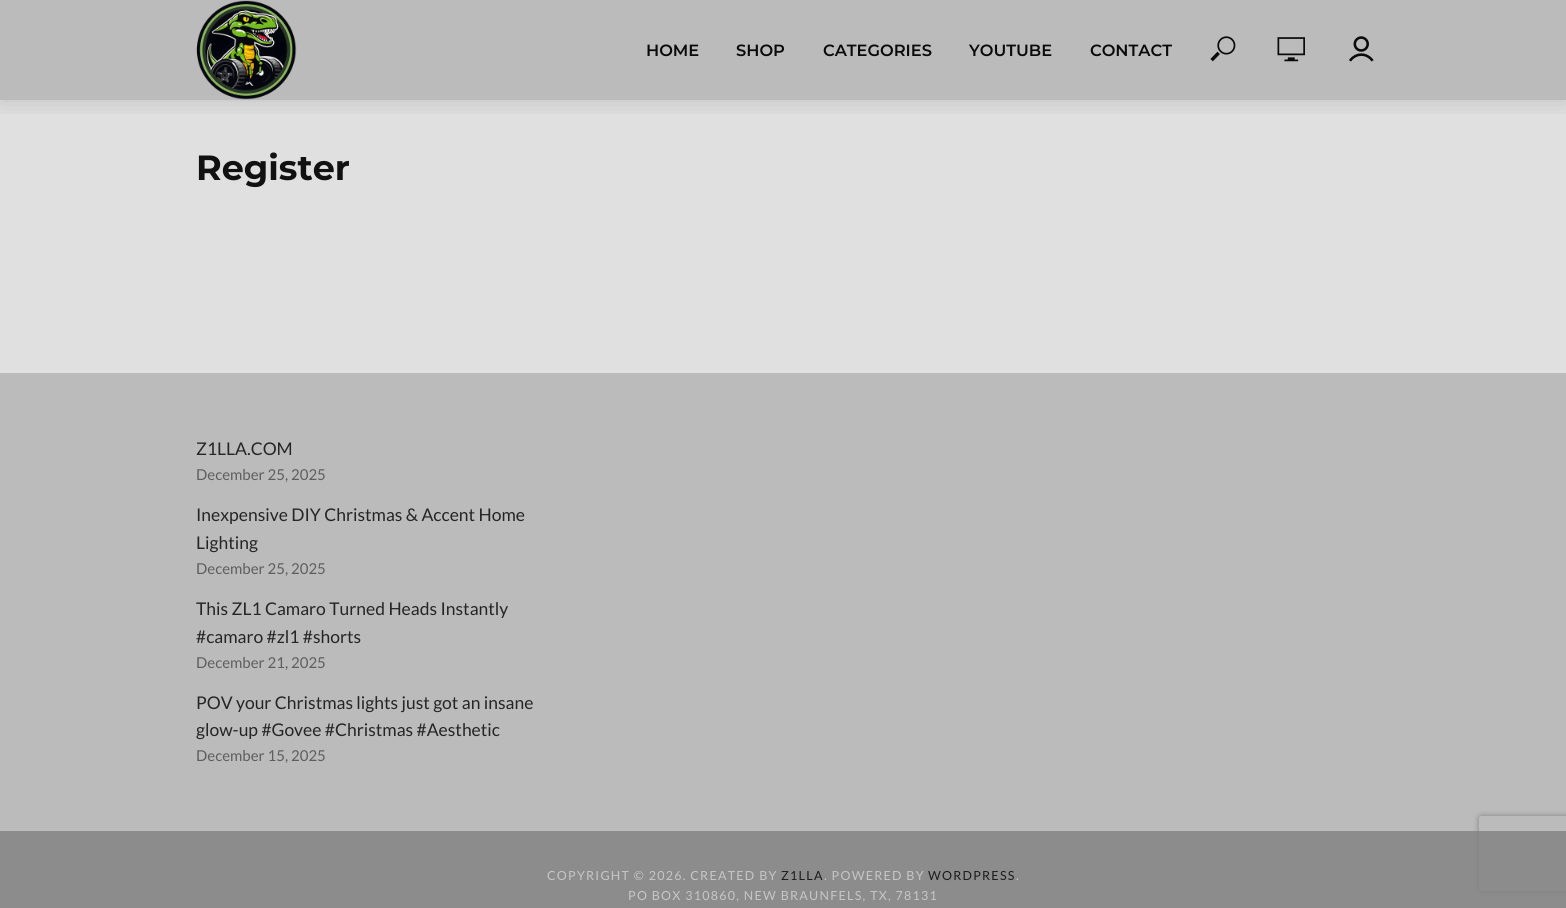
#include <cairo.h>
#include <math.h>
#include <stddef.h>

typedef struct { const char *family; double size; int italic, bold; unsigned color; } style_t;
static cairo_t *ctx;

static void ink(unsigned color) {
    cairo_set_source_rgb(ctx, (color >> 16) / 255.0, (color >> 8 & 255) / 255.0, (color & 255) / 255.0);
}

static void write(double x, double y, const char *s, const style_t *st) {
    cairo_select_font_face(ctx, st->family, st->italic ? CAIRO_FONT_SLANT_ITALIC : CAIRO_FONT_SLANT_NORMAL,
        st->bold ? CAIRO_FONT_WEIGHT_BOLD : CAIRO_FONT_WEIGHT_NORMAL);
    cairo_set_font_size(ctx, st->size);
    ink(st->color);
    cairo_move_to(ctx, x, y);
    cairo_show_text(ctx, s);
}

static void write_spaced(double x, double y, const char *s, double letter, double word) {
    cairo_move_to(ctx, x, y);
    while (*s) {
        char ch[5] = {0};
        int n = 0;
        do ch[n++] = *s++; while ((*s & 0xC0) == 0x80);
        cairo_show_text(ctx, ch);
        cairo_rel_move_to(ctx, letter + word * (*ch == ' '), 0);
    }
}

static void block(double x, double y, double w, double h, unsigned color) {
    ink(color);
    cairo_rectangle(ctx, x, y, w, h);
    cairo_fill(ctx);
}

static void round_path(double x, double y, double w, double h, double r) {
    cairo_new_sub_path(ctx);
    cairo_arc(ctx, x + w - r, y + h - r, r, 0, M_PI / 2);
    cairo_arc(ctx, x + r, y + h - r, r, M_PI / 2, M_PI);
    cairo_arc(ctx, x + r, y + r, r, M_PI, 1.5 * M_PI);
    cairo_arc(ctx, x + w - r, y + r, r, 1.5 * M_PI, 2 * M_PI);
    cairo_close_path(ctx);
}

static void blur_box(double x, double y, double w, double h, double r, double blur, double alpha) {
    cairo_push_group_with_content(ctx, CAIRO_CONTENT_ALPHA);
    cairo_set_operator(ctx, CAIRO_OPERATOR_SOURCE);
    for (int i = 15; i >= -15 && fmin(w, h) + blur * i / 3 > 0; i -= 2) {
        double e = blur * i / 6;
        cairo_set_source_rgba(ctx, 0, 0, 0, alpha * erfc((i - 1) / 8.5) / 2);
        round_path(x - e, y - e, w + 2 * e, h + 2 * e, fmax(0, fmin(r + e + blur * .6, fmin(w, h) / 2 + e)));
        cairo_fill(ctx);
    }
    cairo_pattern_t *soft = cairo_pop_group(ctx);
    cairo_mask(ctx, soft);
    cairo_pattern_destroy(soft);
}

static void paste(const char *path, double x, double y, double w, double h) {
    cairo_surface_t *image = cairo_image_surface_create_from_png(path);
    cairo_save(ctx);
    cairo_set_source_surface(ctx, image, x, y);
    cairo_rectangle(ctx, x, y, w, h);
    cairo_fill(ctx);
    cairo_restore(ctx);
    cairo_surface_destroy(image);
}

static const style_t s1 = {"Montserrat SemiBold", 16.25, 0, 0, 0x0a0a0a};
static const style_t s2 = {"Montserrat", 35, 0, 1, 0x111111};
static const style_t s3 = {"Lato", 17.5, 0, 0, 0x252525};
static const style_t s4 = {"Lato", 15, 0, 0, 0x5e5e5e};

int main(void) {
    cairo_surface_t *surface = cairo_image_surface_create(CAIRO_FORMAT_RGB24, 1566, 908);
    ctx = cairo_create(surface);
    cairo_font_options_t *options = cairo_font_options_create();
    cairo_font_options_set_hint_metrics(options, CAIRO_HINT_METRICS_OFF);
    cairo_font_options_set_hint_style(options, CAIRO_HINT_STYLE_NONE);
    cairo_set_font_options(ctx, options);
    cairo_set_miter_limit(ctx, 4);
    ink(0xe0e0e0);
    cairo_paint(ctx);
    block(0, 0, 1566, 100, 0xbbbbbb);
    cairo_save(ctx);
    cairo_rectangle(ctx, 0, 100, 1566, 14);
    cairo_clip(ctx);
    ink(0x000000);
    blur_box(0, 0, 1566, 100, 0, 12.5, 0.15);
    cairo_restore(ctx);
    paste("pic1.png", 196, 0, 101, 100);
    write(646, 56, "HOME", &s1);
    write(736, 56, "SHOP", &s1);
    write(823, 56, "CATEGORIES", &s1);
    write(969, 56, "YOUTUBE", &s1);
    write(1090, 56, "CONTACT", &s1);
    paste("pic2.png", 1210, 36, 26, 26);
    paste("pic3.png", 1277, 37, 28, 25);
    paste("pic4.png", 1349, 36, 25, 26);
    write(196, 180, "Register", &s2);
    block(0, 373, 1566, 458, 0xbbbbbb);
    write(196, 455, "Z1LLA.COM", &s3);
    write(196, 480, "December 25, 2025", &s4);
    write(196, 521, "Inexpensive DIY Christmas & Accent Home", &s3);
    write(196, 549, "Lighting", &s3);
    write(196, 574, "December 25, 2025", &s4);
    write(196, 615, "This ZL1 Camaro Turned Heads Instantly", &s3);
    write(196, 643, "#camaro #zl1 #shorts", &s3);
    write(196, 668, "December 21, 2025", &s4);
    write(196, 709, "POV your Christmas lights just got an insane", &s3);
    write(196, 736, "glow-up #Govee #Christmas #Aesthetic", &s3);
    write(196, 761, "December 15, 2025", &s4);
    block(0, 831, 1566, 77, 0x8c8c8c);
    cairo_set_font_size(ctx, 12.5);
    ink(0xc6c6c6);
    write_spaced(547, 880, "COPYRIGHT © 2026. CREATED BY", 1.25, 0);
    ink(0x1c1c1c);
    write_spaced(781, 880, "Z1LLA", 1.25, 0);
    ink(0xc6c6c6);
    write_spaced(824, 880, ". POWERED BY", 1.25, 0);
    ink(0x1c1c1c);
    write_spaced(928, 880, "WORDPRESS", 1.25, 0);
    ink(0xc6c6c6);
    write_spaced(1016, 880, ".", 1.25, 0);
    write_spaced(628, 900, "PO BOX 310860, NEW BRAUNFELS, TX, 78131", 1.25, 0);
    cairo_save(ctx);
    cairo_set_fill_rule(ctx, CAIRO_FILL_RULE_EVEN_ODD);
    cairo_new_path(ctx);
    cairo_move_to(ctx, 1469, 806);
    cairo_line_to(ctx, 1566, 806);
    cairo_line_to(ctx, 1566, 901);
    cairo_line_to(ctx, 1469, 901);
    cairo_close_path(ctx);
    cairo_move_to(ctx, 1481.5, 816);
    cairo_line_to(ctx, 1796.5, 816);
    cairo_curve_to(ctx, 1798, 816, 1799, 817, 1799, 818.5);
    cairo_line_to(ctx, 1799, 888.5);
    cairo_curve_to(ctx, 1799, 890, 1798, 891, 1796.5, 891);
    cairo_line_to(ctx, 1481.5, 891);
    cairo_curve_to(ctx, 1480, 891, 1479, 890, 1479, 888.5);
    cairo_line_to(ctx, 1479, 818.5);
    cairo_curve_to(ctx, 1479, 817, 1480, 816, 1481.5, 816);
    cairo_close_path(ctx);
    cairo_clip(ctx);
    ink(0x808080);
    blur_box(1479, 816, 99, 75, 2.5, 3, 1);
    cairo_restore(ctx);
    cairo_surface_write_to_png(surface, "screenshot.png");
    cairo_font_options_destroy(options);
    cairo_destroy(ctx);
    cairo_surface_destroy(surface);
    return 0;
}
